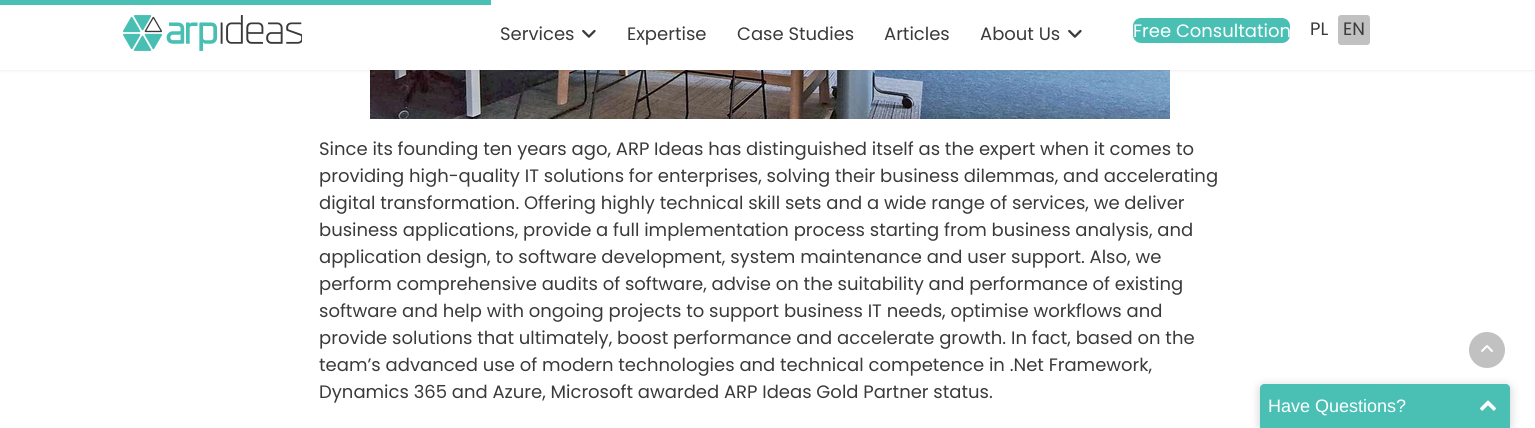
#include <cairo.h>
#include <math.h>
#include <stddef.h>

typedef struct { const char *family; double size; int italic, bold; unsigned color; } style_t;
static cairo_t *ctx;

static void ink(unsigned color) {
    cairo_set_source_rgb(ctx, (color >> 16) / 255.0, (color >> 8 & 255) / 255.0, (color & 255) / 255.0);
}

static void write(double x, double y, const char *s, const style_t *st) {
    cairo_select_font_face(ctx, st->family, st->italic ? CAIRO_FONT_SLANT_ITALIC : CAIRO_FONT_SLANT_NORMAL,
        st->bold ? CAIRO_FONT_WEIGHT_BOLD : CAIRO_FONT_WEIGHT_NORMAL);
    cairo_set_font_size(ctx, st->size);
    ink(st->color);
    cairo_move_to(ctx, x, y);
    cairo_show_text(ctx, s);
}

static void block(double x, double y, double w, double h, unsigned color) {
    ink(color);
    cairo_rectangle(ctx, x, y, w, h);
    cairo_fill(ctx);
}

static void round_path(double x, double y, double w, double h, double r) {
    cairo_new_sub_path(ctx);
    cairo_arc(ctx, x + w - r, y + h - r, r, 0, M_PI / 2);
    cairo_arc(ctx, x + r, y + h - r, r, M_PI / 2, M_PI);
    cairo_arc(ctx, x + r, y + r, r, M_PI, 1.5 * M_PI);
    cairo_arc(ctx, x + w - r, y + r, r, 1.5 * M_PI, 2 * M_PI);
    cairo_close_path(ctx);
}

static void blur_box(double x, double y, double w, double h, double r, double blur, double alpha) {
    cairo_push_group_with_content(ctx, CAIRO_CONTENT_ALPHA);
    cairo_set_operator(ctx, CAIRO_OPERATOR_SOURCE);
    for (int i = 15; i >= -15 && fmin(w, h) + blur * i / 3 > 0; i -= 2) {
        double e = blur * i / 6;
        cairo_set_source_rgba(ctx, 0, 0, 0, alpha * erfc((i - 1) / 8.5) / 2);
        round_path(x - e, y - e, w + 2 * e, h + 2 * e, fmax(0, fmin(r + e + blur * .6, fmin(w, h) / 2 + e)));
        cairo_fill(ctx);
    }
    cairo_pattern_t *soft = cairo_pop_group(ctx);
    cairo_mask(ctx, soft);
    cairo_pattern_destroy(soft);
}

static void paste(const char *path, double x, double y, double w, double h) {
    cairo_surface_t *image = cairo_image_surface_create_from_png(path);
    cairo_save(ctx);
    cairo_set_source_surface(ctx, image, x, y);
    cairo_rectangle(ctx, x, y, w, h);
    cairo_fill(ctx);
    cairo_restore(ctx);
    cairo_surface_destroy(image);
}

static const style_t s1 = {"Poppins", 18, 0, 0, 0x3a3a3a};
static const style_t s2 = {"Poppins", 18, 0, 0, 0xffffff};
static const style_t s3 = {"Liberation Sans", 18, 0, 0, 0xffffff};

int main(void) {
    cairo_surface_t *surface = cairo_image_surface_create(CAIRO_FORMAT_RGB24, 1535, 428);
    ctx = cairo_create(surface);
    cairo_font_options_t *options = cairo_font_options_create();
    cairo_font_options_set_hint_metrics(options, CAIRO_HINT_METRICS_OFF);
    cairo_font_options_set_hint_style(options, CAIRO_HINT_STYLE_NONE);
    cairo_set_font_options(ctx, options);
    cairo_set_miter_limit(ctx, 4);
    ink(0xffffff);
    cairo_paint(ctx);
    paste("pic3.png", 370, 70, 800, 49);
    ink(0x000000);
    blur_box(0, 0, 1535, 70, 0, 2, 0.1);
    block(0, 0, 1535, 70, 0xffffff);
    block(0, 0, 491, 5, 0x4ac0b5);
    paste("pic1.png", 123, 15, 179, 36);
    write(500, 40, "Services", &s1);
    paste("pic2.png", 582, 29, 14, 9);
    write(627, 40, "Expertise", &s1);
    write(737, 40, "Case Studies", &s1);
    write(884, 40, "Articles", &s1);
    write(980, 40, "About Us", &s1);
    paste("pic2.png", 1068, 29, 14, 9);
    ink(0x4ac0b5);
    round_path(1133, 18, 157, 25, 8);
    cairo_fill(ctx);
    write(1133, 37, "Free Consultation", &s2);
    write(1310, 35, "PL", &s1);
    ink(0xc1c1c1);
    round_path(1338, 15, 32, 30, 3);
    cairo_fill(ctx);
    write(1343, 35, "EN", &s1);
    write(319, 155, "Since its founding ten years ago, ARP Ideas has distinguished itself as the expert when it comes to", &s1);
    write(319, 182, "providing high-quality IT solutions for enterprises, solving their business dilemmas, and accelerating", &s1);
    write(319, 209, "digital transformation. Offering highly technical skill sets and a wide range of services, we deliver", &s1);
    write(319, 236, "business applications, provide a full implementation process starting from business analysis, and", &s1);
    write(319, 263, "application design, to software development, system maintenance and user support. Also, we", &s1);
    write(319, 290, "perform comprehensive audits of software, advise on the suitability and performance of existing", &s1);
    write(319, 317, "software and help with ongoing projects to support business IT needs, optimise workflows and", &s1);
    write(319, 344, "provide solutions that ultimately, boost performance and accelerate growth. In fact, based on the", &s1);
    write(319, 371, "team’s advanced use of modern technologies and technical competence in .Net Framework,", &s1);
    write(319, 398, "Dynamics 365 and Azure, Microsoft awarded ARP Ideas Gold Partner status.", &s1);
    ink(0xc1c1c1);
    cairo_new_path(ctx);
    cairo_arc(ctx, 1487, 350, 18, 0, 2 * M_PI);
    cairo_fill(ctx);
    paste("pic4.png", 1481, 345, 12, 7);
    ink(0x000000);
    blur_box(1260, 386, 250, 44, 4, 5, 0.2);
    ink(0x4ac0b5);
    cairo_new_path(ctx);
    cairo_move_to(ctx, 1264, 384);
    cairo_line_to(ctx, 1506, 384);
    cairo_curve_to(ctx, 1508, 384, 1510, 386, 1510, 388);
    cairo_line_to(ctx, 1510, 428);
    cairo_line_to(ctx, 1260, 428);
    cairo_line_to(ctx, 1260, 388);
    cairo_curve_to(ctx, 1260, 386, 1262, 384, 1264, 384);
    cairo_close_path(ctx);
    cairo_fill(ctx);
    write(1268, 412, "Have Questions?", &s3);
    paste("pic5.png", 1479, 400, 18, 11);
    cairo_surface_write_to_png(surface, "screenshot.png");
    cairo_font_options_destroy(options);
    cairo_destroy(ctx);
    cairo_surface_destroy(surface);
    return 0;
}
